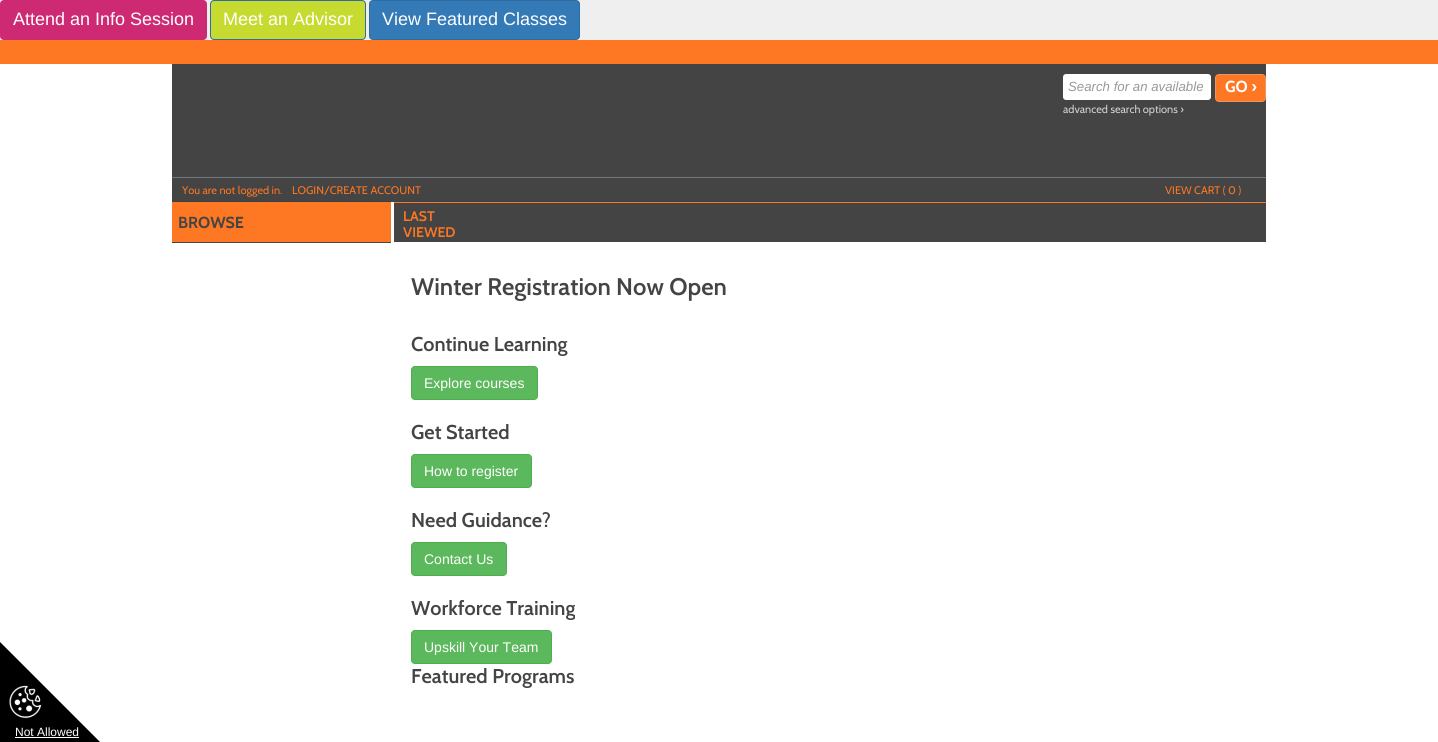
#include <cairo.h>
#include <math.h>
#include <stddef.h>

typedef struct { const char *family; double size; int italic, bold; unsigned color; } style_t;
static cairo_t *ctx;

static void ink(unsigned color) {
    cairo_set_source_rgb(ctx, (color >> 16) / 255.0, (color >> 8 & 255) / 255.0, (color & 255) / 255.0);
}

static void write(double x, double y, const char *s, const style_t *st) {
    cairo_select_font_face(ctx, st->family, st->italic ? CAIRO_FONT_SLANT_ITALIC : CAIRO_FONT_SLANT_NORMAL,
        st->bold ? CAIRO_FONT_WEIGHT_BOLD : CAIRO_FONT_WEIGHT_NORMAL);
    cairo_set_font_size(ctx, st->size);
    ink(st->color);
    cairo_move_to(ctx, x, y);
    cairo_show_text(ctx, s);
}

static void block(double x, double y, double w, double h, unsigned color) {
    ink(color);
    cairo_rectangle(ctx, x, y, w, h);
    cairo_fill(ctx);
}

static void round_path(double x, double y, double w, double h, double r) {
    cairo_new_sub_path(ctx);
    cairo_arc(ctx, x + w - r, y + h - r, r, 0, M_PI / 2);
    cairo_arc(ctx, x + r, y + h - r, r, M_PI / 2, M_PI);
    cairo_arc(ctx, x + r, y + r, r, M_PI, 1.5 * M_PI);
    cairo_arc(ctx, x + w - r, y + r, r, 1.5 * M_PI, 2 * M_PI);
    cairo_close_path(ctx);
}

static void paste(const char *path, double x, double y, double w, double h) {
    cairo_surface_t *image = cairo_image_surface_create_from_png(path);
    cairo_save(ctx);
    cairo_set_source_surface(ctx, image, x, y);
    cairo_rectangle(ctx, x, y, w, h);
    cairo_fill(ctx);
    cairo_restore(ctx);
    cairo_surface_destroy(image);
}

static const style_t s1 = {"Liberation Sans", 18, 0, 0, 0xffffff};
static const style_t s2 = {"Liberation Sans", 13.25, 1, 0, 0x999999};
static const style_t s3 = {"Cabin", 16, 0, 1, 0xffffff};
static const style_t s4 = {"Cabin", 11, 0, 0, 0xd1d3d4};
static const style_t s5 = {"Cabin", 11, 0, 0, 0xfe7722};
static const style_t s6 = {"Cabin", 16, 0, 1, 0x444444};
static const style_t s7 = {"Cabin SemiBold", 14, 0, 0, 0xfe7722};
static const style_t s8 = {"Cabin SemiBold", 24, 0, 0, 0x444444};
static const style_t s9 = {"Cabin SemiBold", 20, 0, 0, 0x444444};
static const style_t s10 = {"Liberation Sans", 14, 0, 0, 0xffffff};
static const style_t s11 = {"Liberation Sans", 12, 0, 0, 0xffffff};

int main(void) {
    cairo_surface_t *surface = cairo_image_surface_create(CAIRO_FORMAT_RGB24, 1438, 742);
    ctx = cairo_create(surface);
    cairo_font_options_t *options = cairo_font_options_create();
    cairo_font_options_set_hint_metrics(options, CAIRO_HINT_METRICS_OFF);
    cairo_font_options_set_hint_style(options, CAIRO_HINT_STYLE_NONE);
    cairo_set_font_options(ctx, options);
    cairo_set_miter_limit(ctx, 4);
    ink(0xffffff);
    cairo_paint(ctx);
    block(0, 0, 1438, 40, 0xefefef);
    ink(0xce2a74);
    round_path(0, 0, 207, 40, 4);
    cairo_fill(ctx);
    write(13, 25, "Attend an Info Session", &s1);
    ink(0xc7da30);
    round_path(210.5, 0.5, 155, 39, 3.5);
    cairo_fill_preserve(ctx);
    ink(0x2e6da4);
    cairo_set_line_width(ctx, 1);
    cairo_stroke(ctx);
    write(223, 25, "Meet an Advisor", &s1);
    ink(0x337ab7);
    round_path(369.5, 0.5, 210, 39, 3.5);
    cairo_fill_preserve(ctx);
    ink(0x2e6da4);
    cairo_stroke(ctx);
    write(382, 25, "View Featured Classes", &s1);
    block(0, 40, 1438, 24, 0xfe7722);
    block(172, 64, 1094, 137, 0x444444);
    ink(0xffffff);
    round_path(1063, 74, 148, 26, 3);
    cairo_fill(ctx);
    write(1068, 91, "Search for an available", &s2);
    ink(0xfe7722);
    round_path(1215.5, 74.5, 50, 27, 3.5);
    cairo_fill_preserve(ctx);
    ink(0xea9661);
    cairo_stroke(ctx);
    write(1225, 92, "GO ›", &s3);
    write(1063, 113, "advanced search options ›", &s4);
    block(172, 177, 1094, 1, 0x70787c);
    block(172, 201, 1094, 1, 0x3b4144);
    write(182, 194, "You are not logged in.", &s5);
    write(292, 194, "LOGIN/CREATE ACCOUNT", &s5);
    write(1165, 194, "VIEW CART ( 0 )", &s5);
    block(172, 202, 219, 40, 0xfe7722);
    block(172, 242, 219, 1, 0x444444);
    write(178, 228, "BROWSE", &s6);
    block(394, 203, 872, 39, 0x444444);
    block(394, 202, 872, 1, 0xfe7722);
    write(403, 221, "LAST", &s7);
    write(403, 237, "VIEWED", &s7);
    write(411, 295, "Winter Registration Now Open", &s8);
    write(411, 351, "Continue Learning", &s9);
    ink(0x5cb85c);
    round_path(411.5, 366.5, 126, 33, 3.5);
    cairo_fill_preserve(ctx);
    ink(0x4cae4c);
    cairo_stroke(ctx);
    write(424, 388, "Explore courses", &s10);
    write(411, 439, "Get Started", &s9);
    ink(0x5cb85c);
    round_path(411.5, 454.5, 120, 33, 3.5);
    cairo_fill_preserve(ctx);
    ink(0x4cae4c);
    cairo_stroke(ctx);
    write(424, 476, "How to register", &s10);
    write(411, 527, "Need Guidance?", &s9);
    ink(0x5cb85c);
    round_path(411.5, 542.5, 95, 33, 3.5);
    cairo_fill_preserve(ctx);
    ink(0x4cae4c);
    cairo_stroke(ctx);
    write(424, 564, "Contact Us", &s10);
    write(411, 615, "Workforce Training", &s9);
    ink(0x5cb85c);
    round_path(411.5, 630.5, 140, 33, 3.5);
    cairo_fill_preserve(ctx);
    ink(0x4cae4c);
    cairo_stroke(ctx);
    write(424, 652, "Upskill Your Team", &s10);
    write(411, 683, "Featured Programs", &s9);
    ink(0x000000);
    cairo_new_path(ctx);
    cairo_move_to(ctx, 100, 742);
    cairo_line_to(ctx, 0, 742);
    cairo_line_to(ctx, 0, 642);
    cairo_close_path(ctx);
    cairo_fill(ctx);
    paste("pic1.png", 9, 685, 33, 34);
    write(15, 736, "Not Allowed", &s11);
    block(15, 737, 64, 1, 0xffffff);
    cairo_surface_write_to_png(surface, "screenshot.png");
    cairo_font_options_destroy(options);
    cairo_destroy(ctx);
    cairo_surface_destroy(surface);
    return 0;
}
